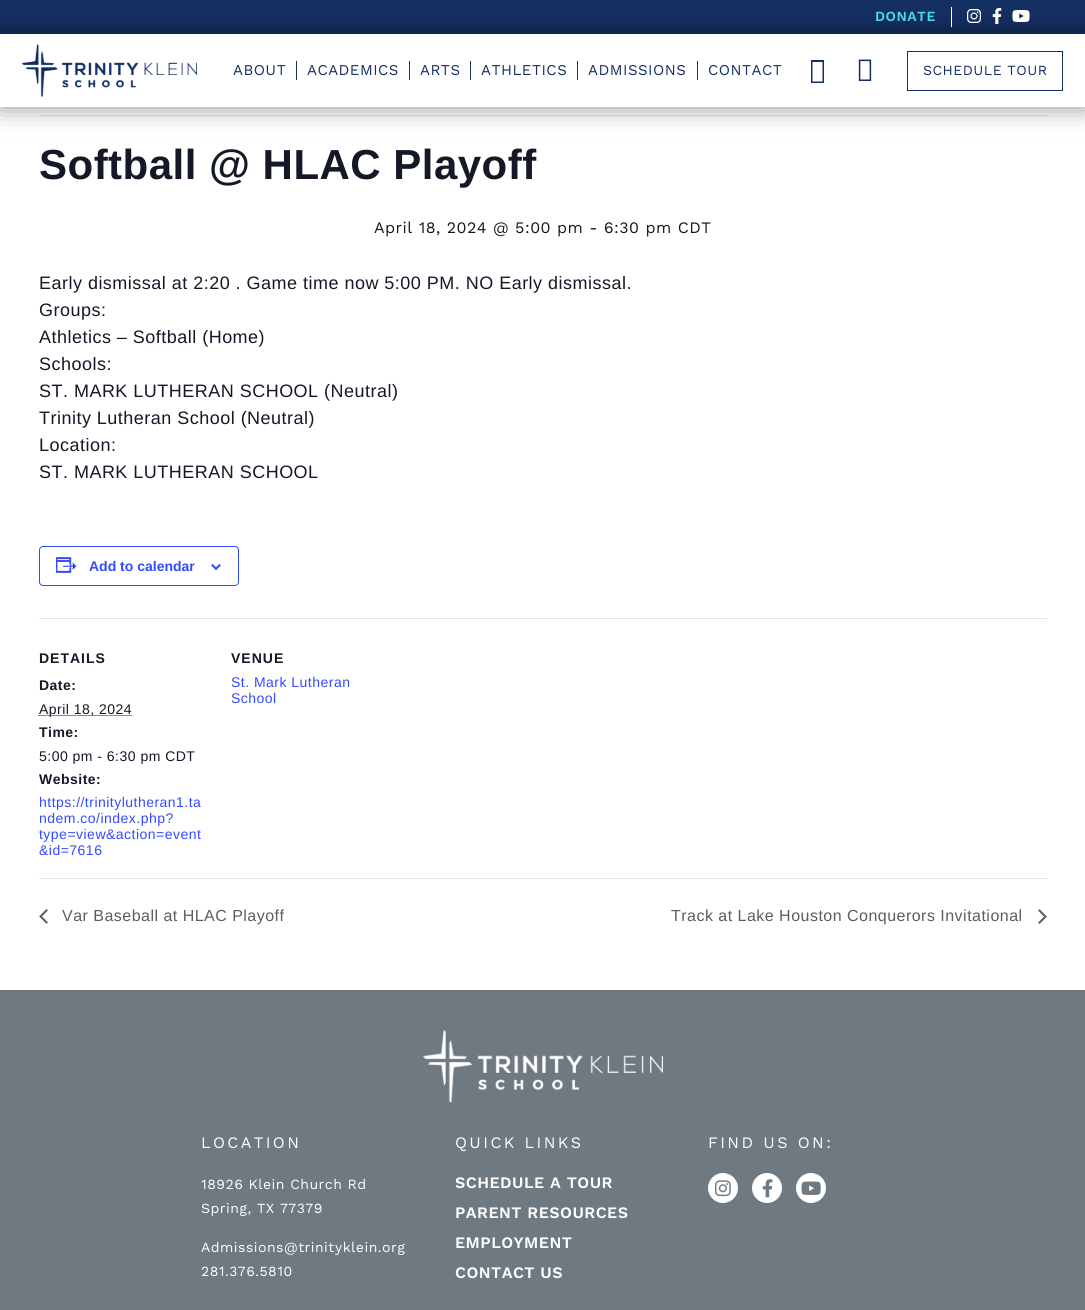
#include <cairo.h>
#include <math.h>
#include <stddef.h>

typedef struct { const char *family; double size; int italic, bold; unsigned color; } style_t;
static cairo_t *ctx;

static void ink(unsigned color) {
    cairo_set_source_rgb(ctx, (color >> 16) / 255.0, (color >> 8 & 255) / 255.0, (color & 255) / 255.0);
}

static void write(double x, double y, const char *s, const style_t *st) {
    cairo_select_font_face(ctx, st->family, st->italic ? CAIRO_FONT_SLANT_ITALIC : CAIRO_FONT_SLANT_NORMAL,
        st->bold ? CAIRO_FONT_WEIGHT_BOLD : CAIRO_FONT_WEIGHT_NORMAL);
    cairo_set_font_size(ctx, st->size);
    ink(st->color);
    cairo_move_to(ctx, x, y);
    cairo_show_text(ctx, s);
}

static void write_spaced(double x, double y, const char *s, double letter, double word) {
    cairo_move_to(ctx, x, y);
    while (*s) {
        char ch[5] = {0};
        int n = 0;
        do ch[n++] = *s++; while ((*s & 0xC0) == 0x80);
        cairo_show_text(ctx, ch);
        cairo_rel_move_to(ctx, letter + word * (*ch == ' '), 0);
    }
}

static void block(double x, double y, double w, double h, unsigned color) {
    ink(color);
    cairo_rectangle(ctx, x, y, w, h);
    cairo_fill(ctx);
}

static void round_path(double x, double y, double w, double h, double r) {
    cairo_new_sub_path(ctx);
    cairo_arc(ctx, x + w - r, y + h - r, r, 0, M_PI / 2);
    cairo_arc(ctx, x + r, y + h - r, r, M_PI / 2, M_PI);
    cairo_arc(ctx, x + r, y + r, r, M_PI, 1.5 * M_PI);
    cairo_arc(ctx, x + w - r, y + r, r, 1.5 * M_PI, 2 * M_PI);
    cairo_close_path(ctx);
}

static void blur_box(double x, double y, double w, double h, double r, double blur, double alpha) {
    cairo_push_group_with_content(ctx, CAIRO_CONTENT_ALPHA);
    cairo_set_operator(ctx, CAIRO_OPERATOR_SOURCE);
    for (int i = 15; i >= -15 && fmin(w, h) + blur * i / 3 > 0; i -= 2) {
        double e = blur * i / 6;
        cairo_set_source_rgba(ctx, 0, 0, 0, alpha * erfc((i - 1) / 8.5) / 2);
        round_path(x - e, y - e, w + 2 * e, h + 2 * e, fmax(0, fmin(r + e + blur * .6, fmin(w, h) / 2 + e)));
        cairo_fill(ctx);
    }
    cairo_pattern_t *soft = cairo_pop_group(ctx);
    cairo_mask(ctx, soft);
    cairo_pattern_destroy(soft);
}

static void paste(const char *path, double x, double y, double w, double h) {
    cairo_surface_t *image = cairo_image_surface_create_from_png(path);
    cairo_save(ctx);
    cairo_set_source_surface(ctx, image, x, y);
    cairo_rectangle(ctx, x, y, w, h);
    cairo_fill(ctx);
    cairo_restore(ctx);
    cairo_surface_destroy(image);
}

static const style_t s1 = {"Liberation Sans", 14, 0, 1, 0x334aff};

int main(void) {
    cairo_surface_t *surface = cairo_image_surface_create(CAIRO_FORMAT_RGB24, 1085, 1310);
    ctx = cairo_create(surface);
    cairo_font_options_t *options = cairo_font_options_create();
    cairo_font_options_set_hint_metrics(options, CAIRO_HINT_METRICS_OFF);
    cairo_font_options_set_hint_style(options, CAIRO_HINT_STYLE_NONE);
    cairo_set_font_options(ctx, options);
    cairo_set_miter_limit(ctx, 4);
    ink(0xffffff);
    cairo_paint(ctx);
    block(0, 0, 1085, 34, 0x142f62);
    block(39, 115, 1008, 1, 0xe4e4e4);
    ink(0x000000);
    blur_box(0, 34, 1085, 73, 0, 12.5, 0.45);
    cairo_select_font_face(ctx, "Work Sans SemiBold", CAIRO_FONT_SLANT_NORMAL, CAIRO_FONT_WEIGHT_NORMAL);
    cairo_set_font_size(ctx, 14);
    ink(0x49dae6);
    write_spaced(875, 21, "DONATE", 0.48, 0);
    block(951, 7, 1, 20, 0xffffff);
    paste("pic1.png", 967, 9, 14, 14);
    paste("pic2.png", 992, 8, 10, 16);
    paste("pic3.png", 1012, 10, 18, 12);
    block(0, 34, 1085, 73, 0xffffff);
    paste("pic4.png", 22, 44, 175, 53);
    cairo_select_font_face(ctx, "Work Sans", CAIRO_FONT_SLANT_NORMAL, CAIRO_FONT_WEIGHT_NORMAL);
    cairo_set_font_size(ctx, 15);
    ink(0x142f62);
    write_spaced(233, 75, "ABOUT", 0.48, 0);
    block(296, 61, 1, 19, 0x142f62);
    write_spaced(307, 75, "ACADEMICS", 0.48, 0);
    block(409, 61, 1, 19, 0x142f62);
    write_spaced(420, 75, "ARTS", 0.48, 0);
    block(470, 61, 1, 19, 0x142f62);
    write_spaced(481, 75, "ATHLETICS", 0.48, 0);
    block(577, 61, 1, 19, 0x142f62);
    write_spaced(588, 75, "ADMISSIONS", 0.48, 0);
    block(697, 61, 1, 19, 0x142f62);
    write_spaced(708, 75, "CONTACT", 0.48, 0);
    cairo_new_path(ctx);
    cairo_move_to(ctx, 811, 83);
    cairo_line_to(ctx, 811, 60);
    cairo_line_to(ctx, 824, 60);
    cairo_line_to(ctx, 824, 83);
    cairo_close_path(ctx);
    cairo_move_to(ctx, 812.5, 81.5);
    cairo_line_to(ctx, 822.5, 81.5);
    cairo_line_to(ctx, 822.5, 62);
    cairo_line_to(ctx, 812.5, 62);
    cairo_close_path(ctx);
    cairo_fill(ctx);
    paste("pic5.png", 858, 59, 14, 22);
    cairo_rectangle(ctx, 907.5, 51.5, 155, 39);
    cairo_set_line_width(ctx, 1);
    cairo_stroke(ctx);
    cairo_set_font_size(ctx, 14);
    write_spaced(923, 75, "SCHEDULE TOUR", 0.48, 0);
    cairo_select_font_face(ctx, "Liberation Sans", CAIRO_FONT_SLANT_NORMAL, CAIRO_FONT_WEIGHT_BOLD);
    cairo_set_font_size(ctx, 42);
    ink(0x141827);
    write_spaced(39, 179, "Softball @ HLAC Playoff", 0.48, 0);
    cairo_select_font_face(ctx, "Work Sans", CAIRO_FONT_SLANT_NORMAL, CAIRO_FONT_WEIGHT_NORMAL);
    cairo_set_font_size(ctx, 16);
    ink(0x171717);
    write_spaced(374, 233, "April 18, 2024 @ 5:00 pm - 6:30 pm CDT", 0.48, 0);
    cairo_select_font_face(ctx, "Liberation Sans", CAIRO_FONT_SLANT_NORMAL, CAIRO_FONT_WEIGHT_NORMAL);
    cairo_set_font_size(ctx, 18);
    ink(0x141827);
    write_spaced(39, 289, "Early dismissal at 2:20 . Game time now 5:00 PM. NO Early dismissal.", 0.48, 0);
    write_spaced(39, 316, "Groups:", 0.48, 0);
    write_spaced(39, 343, "Athletics – Softball (Home)", 0.48, 0);
    write_spaced(39, 370, "Schools:", 0.48, 0);
    write_spaced(39, 397, "ST. MARK LUTHERAN SCHOOL (Neutral)", 0.48, 0);
    write_spaced(39, 424, "Trinity Lutheran School (Neutral)", 0.48, 0);
    write_spaced(39, 451, "Location:", 0.48, 0);
    write_spaced(39, 478, "ST. MARK LUTHERAN SCHOOL", 0.48, 0);
    round_path(39.5, 546.5, 199, 39, 3.5);
    ink(0x334aff);
    cairo_stroke(ctx);
    paste("pic6.png", 56, 557, 21, 16);
    write(89, 571, "Add to calendar", &s1);
    paste("pic7.png", 211, 564, 10, 6);
    block(39, 618, 1008, 1, 0xe4e4e4);
    ink(0x141827);
    write_spaced(39, 663, "DETAILS", 1, 0);
    write_spaced(39, 690, "Date:", 0.48, 0);
    cairo_new_path(ctx);
    cairo_move_to(ctx, 38.5, 715.5);
    cairo_line_to(ctx, 131.5, 715.5);
    cairo_set_dash(ctx, (double[]){1, 1}, 2, 0);
    cairo_stroke(ctx);
    cairo_select_font_face(ctx, "Liberation Sans", CAIRO_FONT_SLANT_NORMAL, CAIRO_FONT_WEIGHT_NORMAL);
    write_spaced(39, 714, "April 18, 2024", 0.48, 0);
    cairo_select_font_face(ctx, "Liberation Sans", CAIRO_FONT_SLANT_NORMAL, CAIRO_FONT_WEIGHT_BOLD);
    write_spaced(39, 737, "Time:", 0.48, 0);
    cairo_select_font_face(ctx, "Liberation Sans", CAIRO_FONT_SLANT_NORMAL, CAIRO_FONT_WEIGHT_NORMAL);
    write_spaced(39, 761, "5:00 pm - 6:30 pm CDT", 0.48, 0);
    cairo_select_font_face(ctx, "Liberation Sans", CAIRO_FONT_SLANT_NORMAL, CAIRO_FONT_WEIGHT_BOLD);
    write_spaced(39, 784, "Website:", 0.48, 0);
    cairo_select_font_face(ctx, "Liberation Sans", CAIRO_FONT_SLANT_NORMAL, CAIRO_FONT_WEIGHT_NORMAL);
    ink(0x334aff);
    write_spaced(39, 807, "https://trinitylutheran1.ta", 0.48, 0);
    write_spaced(39, 823, "ndem.co/index.php?", 0.48, 0);
    write_spaced(39, 839, "type=view&action=event", 0.48, 0);
    write_spaced(39, 855, "&id=7616", 0.48, 0);
    cairo_select_font_face(ctx, "Liberation Sans", CAIRO_FONT_SLANT_NORMAL, CAIRO_FONT_WEIGHT_BOLD);
    ink(0x141827);
    write_spaced(231, 663, "VENUE", 1, 0);
    cairo_select_font_face(ctx, "Liberation Sans", CAIRO_FONT_SLANT_NORMAL, CAIRO_FONT_WEIGHT_NORMAL);
    ink(0x334aff);
    write_spaced(231, 687, "St. Mark Lutheran", 0.48, 0);
    write_spaced(231, 703, "School", 0.48, 0);
    block(39, 878, 1008, 1, 0xe4e4e4);
    paste("pic8.png", 39, 909, 9, 15);
    cairo_set_font_size(ctx, 16);
    ink(0x5d5d5d);
    write_spaced(62, 921, "Var Baseball at HLAC Playoff", 0.48, 0);
    write_spaced(671, 921, "Track at Lake Houston Conquerors Invitational", 0.48, 0);
    paste("pic9.png", 1038, 909, 9, 15);
    block(0, 990, 1085, 320, 0x6e7982);
    paste("pic10.png", 423, 1030, 240, 73);
    cairo_select_font_face(ctx, "Work Sans", CAIRO_FONT_SLANT_NORMAL, CAIRO_FONT_WEIGHT_NORMAL);
    ink(0xffffff);
    write_spaced(201, 1148, "LOCATION", 2.4, 0);
    cairo_set_font_size(ctx, 14);
    write_spaced(201, 1189, "18926 Klein Church Rd", 0.48, 0);
    write_spaced(201, 1213, "Spring, TX 77379", 0.48, 0);
    write_spaced(201, 1252, "Admissions@trinityklein.org", 0.48, 0);
    write_spaced(201, 1276, "281.376.5810", 0.48, 0);
    cairo_set_font_size(ctx, 16);
    write_spaced(455, 1148, "QUICK LINKS", 2.4, 0);
    cairo_select_font_face(ctx, "Work Sans SemiBold", CAIRO_FONT_SLANT_NORMAL, CAIRO_FONT_WEIGHT_NORMAL);
    write_spaced(455, 1188, "SCHEDULE A TOUR", 0.48, 0);
    write_spaced(455, 1218, "PARENT RESOURCES", 0.48, 0);
    write_spaced(455, 1248, "EMPLOYMENT", 0.48, 0);
    write_spaced(455, 1278, "CONTACT US", 0.48, 0);
    cairo_select_font_face(ctx, "Work Sans", CAIRO_FONT_SLANT_NORMAL, CAIRO_FONT_WEIGHT_NORMAL);
    write_spaced(708, 1148, "FIND US ON:", 2.4, 0);
    cairo_new_path(ctx);
    cairo_arc(ctx, 723, 1188, 15, 0, 2 * M_PI);
    cairo_fill(ctx);
    paste("pic11.png", 715, 1180, 16, 17);
    cairo_arc(ctx, 767, 1188, 15, 0, 2 * M_PI);
    cairo_fill(ctx);
    paste("pic12.png", 762, 1179, 11, 19);
    cairo_arc(ctx, 811, 1188, 15, 0, 2 * M_PI);
    cairo_fill(ctx);
    paste("pic13.png", 801, 1181, 20, 14);
    cairo_surface_write_to_png(surface, "screenshot.png");
    cairo_font_options_destroy(options);
    cairo_destroy(ctx);
    cairo_surface_destroy(surface);
    return 0;
}
